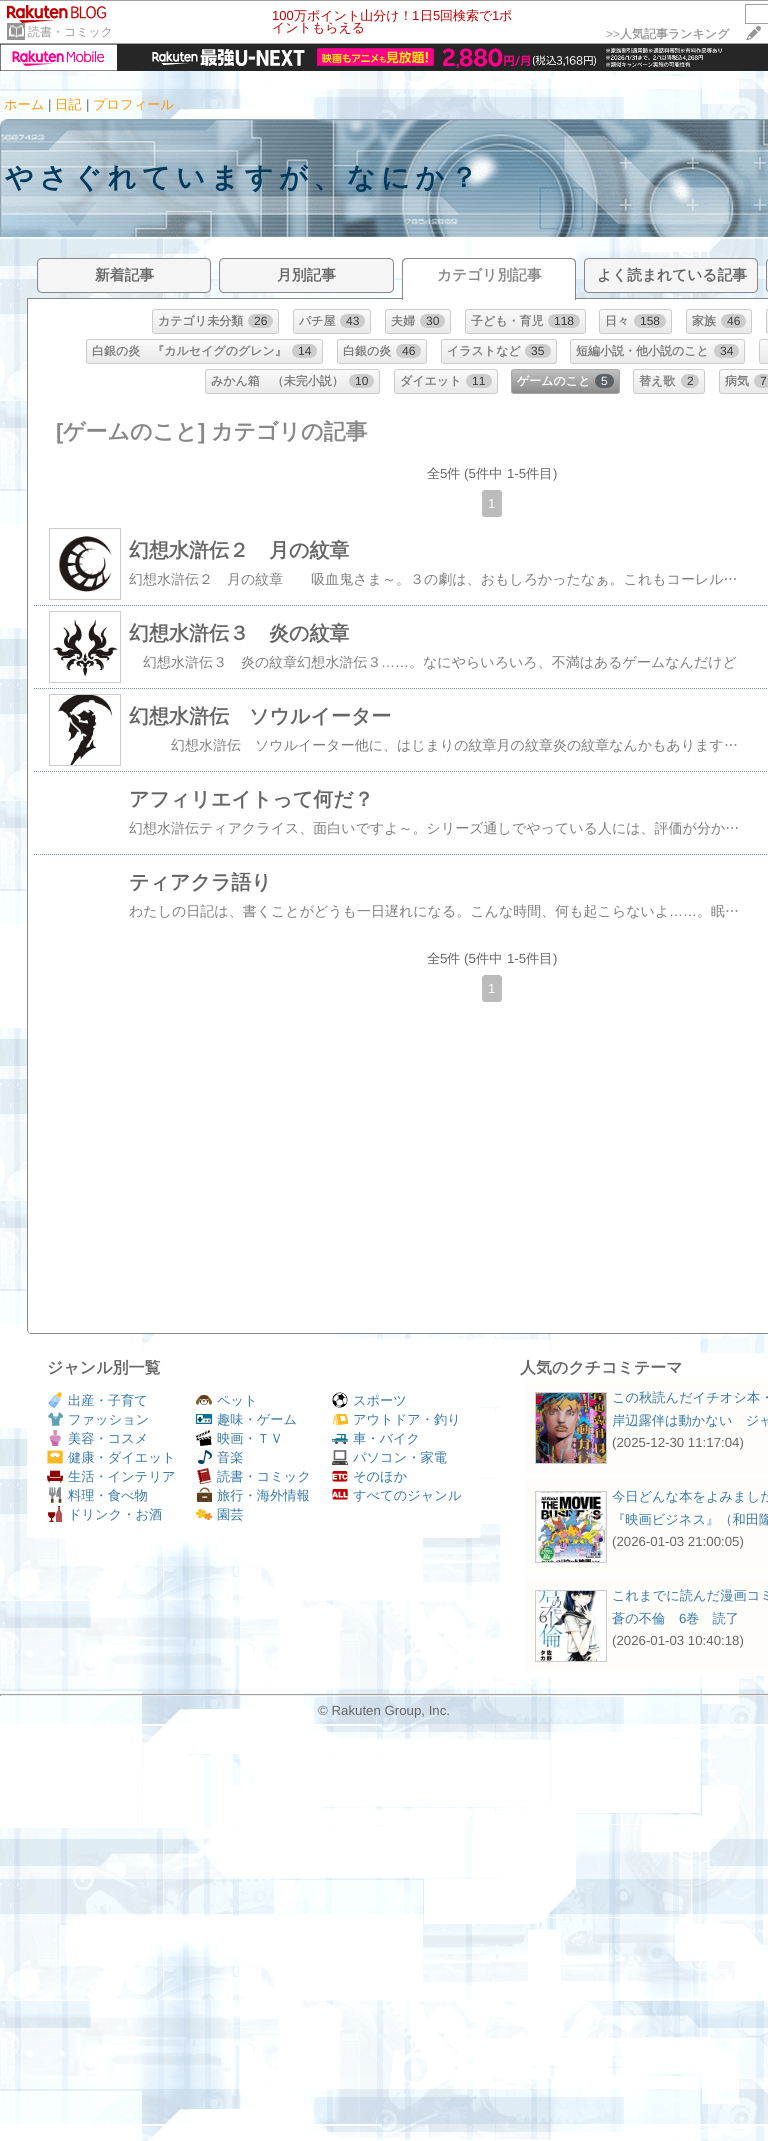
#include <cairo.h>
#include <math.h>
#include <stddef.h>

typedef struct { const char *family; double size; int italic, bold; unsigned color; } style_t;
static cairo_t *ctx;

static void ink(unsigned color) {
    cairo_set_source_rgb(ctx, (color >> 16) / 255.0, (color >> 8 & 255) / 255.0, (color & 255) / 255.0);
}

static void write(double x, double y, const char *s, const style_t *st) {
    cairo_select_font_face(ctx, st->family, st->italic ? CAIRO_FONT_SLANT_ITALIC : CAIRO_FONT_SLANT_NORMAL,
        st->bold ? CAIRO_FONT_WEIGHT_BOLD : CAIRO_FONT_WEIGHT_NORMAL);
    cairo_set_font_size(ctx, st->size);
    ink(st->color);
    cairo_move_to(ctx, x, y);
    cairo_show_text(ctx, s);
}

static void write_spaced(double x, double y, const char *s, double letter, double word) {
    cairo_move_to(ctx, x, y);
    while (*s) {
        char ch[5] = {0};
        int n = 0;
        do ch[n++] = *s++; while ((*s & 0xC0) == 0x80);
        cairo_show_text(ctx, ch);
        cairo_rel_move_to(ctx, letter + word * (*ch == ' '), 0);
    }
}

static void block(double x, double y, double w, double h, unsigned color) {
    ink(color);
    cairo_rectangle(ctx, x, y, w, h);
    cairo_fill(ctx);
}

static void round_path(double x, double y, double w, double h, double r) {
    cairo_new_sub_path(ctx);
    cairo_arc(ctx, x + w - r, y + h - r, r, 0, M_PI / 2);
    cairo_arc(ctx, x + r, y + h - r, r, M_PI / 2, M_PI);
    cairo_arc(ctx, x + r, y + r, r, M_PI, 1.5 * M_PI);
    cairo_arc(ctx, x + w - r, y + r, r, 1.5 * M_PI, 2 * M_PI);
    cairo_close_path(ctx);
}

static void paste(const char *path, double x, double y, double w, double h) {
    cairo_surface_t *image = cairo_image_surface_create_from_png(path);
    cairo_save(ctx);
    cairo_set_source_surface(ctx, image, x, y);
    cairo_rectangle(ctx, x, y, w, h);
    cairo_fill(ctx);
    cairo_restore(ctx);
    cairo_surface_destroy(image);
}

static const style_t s1 = {"WenQuanYi Zen Hei Medium", 12, 0, 0, 0x999999};
static const style_t s2 = {"Liberation Sans", 13, 0, 0, 0xbf0000};
static const style_t s3 = {"WenQuanYi Zen Hei Medium", 13, 0, 0, 0xbf0000};
static const style_t s4 = {"Liberation Sans", 12, 0, 0, 0x999999};
static const style_t s5 = {"WenQuanYi Zen Hei", 12, 0, 1, 0x999999};
static const style_t s6 = {"WenQuanYi Zen Hei Medium", 13.25, 0, 0, 0xff9600};
static const style_t s7 = {"Liberation Sans", 13.25, 0, 0, 0x666666};
static const style_t s8 = {"WenQuanYi Zen Hei", 14.75, 0, 1, 0x666666};
static const style_t s9 = {"WenQuanYi Zen Hei", 14.75, 0, 1, 0x888888};
static const style_t s10 = {"WenQuanYi Zen Hei", 12, 0, 1, 0x7d7d7d};
static const style_t s11 = {"Liberation Sans", 12, 0, 0, 0x3c3c3c};
static const style_t s12 = {"WenQuanYi Zen Hei", 12, 0, 1, 0xffffff};
static const style_t s13 = {"Liberation Sans", 12, 0, 0, 0xffffff};
static const style_t s14 = {"Liberation Sans", 22, 0, 1, 0x888888};
static const style_t s15 = {"WenQuanYi Zen Hei", 22, 0, 1, 0x888888};
static const style_t s16 = {"WenQuanYi Zen Hei Medium", 13.25, 0, 0, 0x666666};
static const style_t s17 = {"Liberation Sans", 13.25, 0, 0, 0xffffff};
static const style_t s18 = {"WenQuanYi Zen Hei", 20, 0, 1, 0x666666};
static const style_t s19 = {"WenQuanYi Zen Hei Medium", 14, 0, 0, 0x7d7d7d};
static const style_t s20 = {"Liberation Sans", 14, 0, 0, 0x7d7d7d};
static const style_t s21 = {"WenQuanYi Zen Hei", 16, 0, 1, 0x666666};
static const style_t s22 = {"WenQuanYi Zen Hei Medium", 13.25, 0, 0, 0x3779a7};
static const style_t s23 = {"Liberation Sans", 13.25, 0, 0, 0x3779a7};

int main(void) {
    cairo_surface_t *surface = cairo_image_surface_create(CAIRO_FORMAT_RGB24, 768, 2141);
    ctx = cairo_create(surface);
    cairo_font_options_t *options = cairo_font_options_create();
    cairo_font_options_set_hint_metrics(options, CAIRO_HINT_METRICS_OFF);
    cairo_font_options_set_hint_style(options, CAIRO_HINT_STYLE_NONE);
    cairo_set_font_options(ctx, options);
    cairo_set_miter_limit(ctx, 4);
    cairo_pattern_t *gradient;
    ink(0xffffff);
    cairo_paint(ctx);
    paste("pic1.png", 0, 71, 768, 2070);
    block(0, 0, 768, 1, 0xa1a1a1);
    block(0, 43, 768, 1, 0xa1a1a1);
    paste("pic2.png", 7, 5, 99, 18);
    paste("pic3.png", 7, 23, 18, 17);
    write(28, 36, "読書・コミック", &s1);
    write(272, 20, "100", &s2);
    write(294, 20, "万ポイント山分け！", &s3);
    write(412, 20, "1", &s2);
    write(420, 20, "日", &s3);
    write(433, 20, "5", &s2);
    write(440, 20, "回検索で", &s3);
    write(492, 20, "1", &s2);
    write(499, 20, "ポ", &s3);
    write(272, 32, "イントもらえる", &s3);
    cairo_rectangle(ctx, 745.5, 4.5, 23, 19);
    ink(0xa1a1a1);
    cairo_set_line_width(ctx, 1);
    cairo_stroke(ctx);
    write(606, 38, ">>", &s4);
    write(620, 38, "人気記事ランキング", &s5);
    paste("pic4.png", 746, 26, 15, 14);
    paste("pic5.png", 0, 44, 768, 27);
    write(4, 109, "ホーム", &s6);
    write(48, 109, "|", &s7);
    write(55, 109, "日記", &s6);
    write(86, 109, "|", &s7);
    write(93, 109, "プロフィール", &s6);
    paste("pic6.png", 0, 119, 768, 118);
    cairo_select_font_face(ctx, "WenQuanYi Zen Hei", CAIRO_FONT_SLANT_NORMAL, CAIRO_FONT_WEIGHT_BOLD);
    cairo_set_font_size(ctx, 28);
    ink(0x003a5c);
    write_spaced(5, 187, "やさぐれていますが、なにか？", 5.6, 0);
    block(27, 298, 741, 1, 0x888888);
    ink(0xf5f5f5);
    round_path(37.5, 258.5, 173, 34, 4.5);
    cairo_fill_preserve(ctx);
    ink(0x888888);
    cairo_stroke(ctx);
    write(95, 280, "新着記事", &s8);
    ink(0xf5f5f5);
    round_path(219.5, 258.5, 174, 34, 4.5);
    cairo_fill_preserve(ctx);
    ink(0x888888);
    cairo_stroke(ctx);
    write(277, 280, "月別記事", &s8);
    ink(0xffffff);
    cairo_new_path(ctx);
    cairo_move_to(ctx, 27, 299);
    cairo_line_to(ctx, 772, 299);
    cairo_line_to(ctx, 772, 1330);
    cairo_curve_to(ctx, 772, 1332, 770, 1334, 768, 1334);
    cairo_line_to(ctx, 31, 1334);
    cairo_curve_to(ctx, 29, 1334, 27, 1332, 27, 1330);
    cairo_close_path(ctx);
    cairo_fill(ctx);
    ink(0x888888);
    cairo_set_fill_rule(ctx, CAIRO_FILL_RULE_EVEN_ODD);
    cairo_new_path(ctx);
    cairo_move_to(ctx, 27, 299);
    cairo_line_to(ctx, 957, 299);
    cairo_line_to(ctx, 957, 1330);
    cairo_curve_to(ctx, 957, 1332, 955, 1334, 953, 1334);
    cairo_line_to(ctx, 31, 1334);
    cairo_curve_to(ctx, 29, 1334, 27, 1332, 27, 1330);
    cairo_close_path(ctx);
    cairo_move_to(ctx, 28, 299);
    cairo_line_to(ctx, 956, 299);
    cairo_line_to(ctx, 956, 1330);
    cairo_curve_to(ctx, 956, 1332, 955, 1333, 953, 1333);
    cairo_line_to(ctx, 31, 1333);
    cairo_curve_to(ctx, 29, 1333, 28, 1332, 28, 1330);
    cairo_close_path(ctx);
    cairo_fill(ctx);
    ink(0xffffff);
    cairo_new_path(ctx);
    cairo_move_to(ctx, 407, 258);
    cairo_line_to(ctx, 571, 258);
    cairo_curve_to(ctx, 574, 258, 576, 260, 576, 263);
    cairo_line_to(ctx, 576, 300);
    cairo_line_to(ctx, 402, 300);
    cairo_line_to(ctx, 402, 263);
    cairo_curve_to(ctx, 402, 260, 404, 258, 407, 258);
    cairo_close_path(ctx);
    cairo_fill(ctx);
    ink(0x888888);
    cairo_new_path(ctx);
    cairo_move_to(ctx, 407, 258);
    cairo_line_to(ctx, 571, 258);
    cairo_curve_to(ctx, 574, 258, 576, 260, 576, 263);
    cairo_line_to(ctx, 576, 300);
    cairo_line_to(ctx, 402, 300);
    cairo_line_to(ctx, 402, 263);
    cairo_curve_to(ctx, 402, 260, 404, 258, 407, 258);
    cairo_close_path(ctx);
    cairo_move_to(ctx, 407, 259);
    cairo_line_to(ctx, 571, 259);
    cairo_curve_to(ctx, 573, 259, 575, 261, 575, 263);
    cairo_line_to(ctx, 575, 300);
    cairo_line_to(ctx, 403, 300);
    cairo_line_to(ctx, 403, 263);
    cairo_curve_to(ctx, 403, 261, 405, 259, 407, 259);
    cairo_close_path(ctx);
    cairo_fill(ctx);
    write(437, 280, "カテゴリ別記事", &s9);
    ink(0xf5f5f5);
    round_path(584.5, 258.5, 173, 34, 4.5);
    cairo_fill_preserve(ctx);
    ink(0x888888);
    cairo_stroke(ctx);
    write(597, 280, "よく読まれている記事", &s8);
    ink(0xf5f5f5);
    round_path(766.5, 258.5, 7, 34, 4.5);
    cairo_fill_preserve(ctx);
    ink(0x888888);
    cairo_stroke(ctx);
    cairo_save(ctx);
    cairo_set_fill_rule(ctx, CAIRO_FILL_RULE_WINDING);
    round_path(152, 309, 127, 25, 3);
    cairo_clip(ctx);
    gradient = cairo_pattern_create_linear(216, 310, 216, 333);
    cairo_pattern_add_color_stop_rgba(gradient, 0, 0.98, 0.98, 0.98, 1);
    cairo_pattern_add_color_stop_rgba(gradient, 1, 0.914, 0.914, 0.914, 1);
    cairo_set_source(ctx, gradient);
    cairo_pattern_destroy(gradient);
    cairo_rectangle(ctx, 152, 310, 127, 23);
    cairo_fill(ctx);
    cairo_restore(ctx);
    round_path(152.5, 309.5, 126, 24, 2.5);
    ink(0xcccccc);
    cairo_stroke(ctx);
    write(158, 325, "カテゴリ未分類", &s10);
    ink(0xcccccc);
    round_path(248, 314, 25, 14, 7);
    cairo_fill(ctx);
    write(254, 325, "26", &s11);
    cairo_save(ctx);
    cairo_set_fill_rule(ctx, CAIRO_FILL_RULE_WINDING);
    round_path(293, 309, 78, 25, 3);
    cairo_clip(ctx);
    gradient = cairo_pattern_create_linear(332, 310, 332, 333);
    cairo_pattern_add_color_stop_rgba(gradient, 0, 0.98, 0.98, 0.98, 1);
    cairo_pattern_add_color_stop_rgba(gradient, 1, 0.914, 0.914, 0.914, 1);
    cairo_set_source(ctx, gradient);
    cairo_pattern_destroy(gradient);
    cairo_rectangle(ctx, 293, 310, 78, 23);
    cairo_fill(ctx);
    cairo_restore(ctx);
    round_path(293.5, 309.5, 77, 24, 2.5);
    ink(0xcccccc);
    cairo_stroke(ctx);
    write(299, 325, "パチ屋", &s10);
    ink(0xcccccc);
    round_path(340, 314, 25, 14, 7);
    cairo_fill(ctx);
    write(346, 325, "43", &s11);
    cairo_save(ctx);
    cairo_set_fill_rule(ctx, CAIRO_FILL_RULE_WINDING);
    round_path(385, 309, 66, 25, 3);
    cairo_clip(ctx);
    gradient = cairo_pattern_create_linear(418, 310, 418, 333);
    cairo_pattern_add_color_stop_rgba(gradient, 0, 0.98, 0.98, 0.98, 1);
    cairo_pattern_add_color_stop_rgba(gradient, 1, 0.914, 0.914, 0.914, 1);
    cairo_set_source(ctx, gradient);
    cairo_pattern_destroy(gradient);
    cairo_rectangle(ctx, 385, 310, 66, 23);
    cairo_fill(ctx);
    cairo_restore(ctx);
    round_path(385.5, 309.5, 65, 24, 2.5);
    ink(0xcccccc);
    cairo_stroke(ctx);
    write(391, 325, "夫婦", &s10);
    ink(0xcccccc);
    round_path(420, 314, 25, 14, 7);
    cairo_fill(ctx);
    write(426, 325, "30", &s11);
    cairo_save(ctx);
    cairo_set_fill_rule(ctx, CAIRO_FILL_RULE_WINDING);
    round_path(465, 309, 121, 25, 3);
    cairo_clip(ctx);
    gradient = cairo_pattern_create_linear(526, 310, 526, 333);
    cairo_pattern_add_color_stop_rgba(gradient, 0, 0.98, 0.98, 0.98, 1);
    cairo_pattern_add_color_stop_rgba(gradient, 1, 0.914, 0.914, 0.914, 1);
    cairo_set_source(ctx, gradient);
    cairo_pattern_destroy(gradient);
    cairo_rectangle(ctx, 465, 310, 121, 23);
    cairo_fill(ctx);
    cairo_restore(ctx);
    round_path(465.5, 309.5, 120, 24, 2.5);
    ink(0xcccccc);
    cairo_stroke(ctx);
    write(471, 325, "子ども・育児", &s10);
    ink(0xcccccc);
    round_path(548, 314, 32, 14, 7);
    cairo_fill(ctx);
    write(554, 325, "118", &s11);
    cairo_save(ctx);
    cairo_set_fill_rule(ctx, CAIRO_FILL_RULE_WINDING);
    round_path(599, 309, 73, 25, 3);
    cairo_clip(ctx);
    gradient = cairo_pattern_create_linear(636, 310, 636, 333);
    cairo_pattern_add_color_stop_rgba(gradient, 0, 0.98, 0.98, 0.98, 1);
    cairo_pattern_add_color_stop_rgba(gradient, 1, 0.914, 0.914, 0.914, 1);
    cairo_set_source(ctx, gradient);
    cairo_pattern_destroy(gradient);
    cairo_rectangle(ctx, 599, 310, 73, 23);
    cairo_fill(ctx);
    cairo_restore(ctx);
    round_path(599.5, 309.5, 72, 24, 2.5);
    ink(0xcccccc);
    cairo_stroke(ctx);
    write(605, 325, "日々", &s10);
    ink(0xcccccc);
    round_path(634, 314, 32, 14, 7);
    cairo_fill(ctx);
    write(640, 325, "158", &s11);
    cairo_save(ctx);
    cairo_set_fill_rule(ctx, CAIRO_FILL_RULE_WINDING);
    round_path(686, 309, 66, 25, 3);
    cairo_clip(ctx);
    gradient = cairo_pattern_create_linear(719, 310, 719, 333);
    cairo_pattern_add_color_stop_rgba(gradient, 0, 0.98, 0.98, 0.98, 1);
    cairo_pattern_add_color_stop_rgba(gradient, 1, 0.914, 0.914, 0.914, 1);
    cairo_set_source(ctx, gradient);
    cairo_pattern_destroy(gradient);
    cairo_rectangle(ctx, 686, 310, 66, 23);
    cairo_fill(ctx);
    cairo_restore(ctx);
    round_path(686.5, 309.5, 65, 24, 2.5);
    ink(0xcccccc);
    cairo_stroke(ctx);
    write(692, 325, "家族", &s10);
    ink(0xcccccc);
    round_path(721, 314, 25, 14, 7);
    cairo_fill(ctx);
    write(727, 325, "46", &s11);
    gradient = cairo_pattern_create_linear(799, 287, 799, 310);
    cairo_pattern_add_color_stop_rgba(gradient, 0, 0.98, 0.98, 0.98, 1);
    cairo_pattern_add_color_stop_rgba(gradient, 1, 0.914, 0.914, 0.914, 1);
    cairo_set_source(ctx, gradient);
    cairo_pattern_destroy(gradient);
    cairo_rectangle(ctx, 766, 309, 2, 1);
    cairo_fill(ctx);
    cairo_save(ctx);
    cairo_set_fill_rule(ctx, CAIRO_FILL_RULE_WINDING);
    round_path(766, 309, 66, 25, 3);
    cairo_clip(ctx);
    gradient = cairo_pattern_create_linear(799, 310, 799, 333);
    cairo_pattern_add_color_stop_rgba(gradient, 0, 0.98, 0.98, 0.98, 1);
    cairo_pattern_add_color_stop_rgba(gradient, 1, 0.914, 0.914, 0.914, 1);
    cairo_set_source(ctx, gradient);
    cairo_pattern_destroy(gradient);
    cairo_rectangle(ctx, 766, 310, 2, 23);
    cairo_fill(ctx);
    cairo_restore(ctx);
    gradient = cairo_pattern_create_linear(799, 333, 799, 356);
    cairo_pattern_add_color_stop_rgba(gradient, 0, 0.98, 0.98, 0.98, 1);
    cairo_pattern_add_color_stop_rgba(gradient, 1, 0.914, 0.914, 0.914, 1);
    cairo_set_source(ctx, gradient);
    cairo_pattern_destroy(gradient);
    cairo_rectangle(ctx, 766, 333, 2, 1);
    cairo_fill(ctx);
    round_path(766.5, 309.5, 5, 24, 2.5);
    ink(0xcccccc);
    cairo_stroke(ctx);
    cairo_save(ctx);
    cairo_set_fill_rule(ctx, CAIRO_FILL_RULE_WINDING);
    round_path(86, 339, 237, 25, 3);
    cairo_clip(ctx);
    gradient = cairo_pattern_create_linear(205, 340, 205, 363);
    cairo_pattern_add_color_stop_rgba(gradient, 0, 0.98, 0.98, 0.98, 1);
    cairo_pattern_add_color_stop_rgba(gradient, 1, 0.914, 0.914, 0.914, 1);
    cairo_set_source(ctx, gradient);
    cairo_pattern_destroy(gradient);
    cairo_rectangle(ctx, 86, 340, 237, 23);
    cairo_fill(ctx);
    cairo_restore(ctx);
    round_path(86.5, 339.5, 236, 24, 2.5);
    cairo_stroke(ctx);
    write(92, 355, "白銀の炎　『カルセイグのグレン』", &s10);
    ink(0xcccccc);
    round_path(292, 344, 25, 14, 7);
    cairo_fill(ctx);
    write(298, 355, "14", &s11);
    cairo_save(ctx);
    cairo_set_fill_rule(ctx, CAIRO_FILL_RULE_WINDING);
    round_path(337, 339, 90, 25, 3);
    cairo_clip(ctx);
    gradient = cairo_pattern_create_linear(382, 340, 382, 363);
    cairo_pattern_add_color_stop_rgba(gradient, 0, 0.98, 0.98, 0.98, 1);
    cairo_pattern_add_color_stop_rgba(gradient, 1, 0.914, 0.914, 0.914, 1);
    cairo_set_source(ctx, gradient);
    cairo_pattern_destroy(gradient);
    cairo_rectangle(ctx, 337, 340, 90, 23);
    cairo_fill(ctx);
    cairo_restore(ctx);
    round_path(337.5, 339.5, 89, 24, 2.5);
    ink(0xcccccc);
    cairo_stroke(ctx);
    write(343, 355, "白銀の炎", &s10);
    ink(0xcccccc);
    round_path(396, 344, 25, 14, 7);
    cairo_fill(ctx);
    write(402, 355, "46", &s11);
    cairo_save(ctx);
    cairo_set_fill_rule(ctx, CAIRO_FILL_RULE_WINDING);
    round_path(441, 339, 116, 25, 3);
    cairo_clip(ctx);
    gradient = cairo_pattern_create_linear(499, 340, 499, 363);
    cairo_pattern_add_color_stop_rgba(gradient, 0, 0.98, 0.98, 0.98, 1);
    cairo_pattern_add_color_stop_rgba(gradient, 1, 0.914, 0.914, 0.914, 1);
    cairo_set_source(ctx, gradient);
    cairo_pattern_destroy(gradient);
    cairo_rectangle(ctx, 441, 340, 116, 23);
    cairo_fill(ctx);
    cairo_restore(ctx);
    round_path(441.5, 339.5, 115, 24, 2.5);
    ink(0xcccccc);
    cairo_stroke(ctx);
    write(447, 355, "イラストなど", &s10);
    ink(0xcccccc);
    round_path(525, 344, 26, 14, 7);
    cairo_fill(ctx);
    write(531, 355, "35", &s11);
    cairo_save(ctx);
    cairo_set_fill_rule(ctx, CAIRO_FILL_RULE_WINDING);
    round_path(570, 339, 175, 25, 3);
    cairo_clip(ctx);
    gradient = cairo_pattern_create_linear(658, 340, 658, 363);
    cairo_pattern_add_color_stop_rgba(gradient, 0, 0.98, 0.98, 0.98, 1);
    cairo_pattern_add_color_stop_rgba(gradient, 1, 0.914, 0.914, 0.914, 1);
    cairo_set_source(ctx, gradient);
    cairo_pattern_destroy(gradient);
    cairo_rectangle(ctx, 570, 340, 175, 23);
    cairo_fill(ctx);
    cairo_restore(ctx);
    round_path(570.5, 339.5, 174, 24, 2.5);
    ink(0xcccccc);
    cairo_stroke(ctx);
    write(576, 355, "短編小説・他小説のこと", &s10);
    ink(0xcccccc);
    round_path(714, 344, 25, 14, 7);
    cairo_fill(ctx);
    write(720, 355, "34", &s11);
    cairo_save(ctx);
    cairo_set_fill_rule(ctx, CAIRO_FILL_RULE_WINDING);
    round_path(759, 339, 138, 25, 3);
    cairo_clip(ctx);
    gradient = cairo_pattern_create_linear(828, 340, 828, 363);
    cairo_pattern_add_color_stop_rgba(gradient, 0, 0.98, 0.98, 0.98, 1);
    cairo_pattern_add_color_stop_rgba(gradient, 1, 0.914, 0.914, 0.914, 1);
    cairo_set_source(ctx, gradient);
    cairo_pattern_destroy(gradient);
    cairo_rectangle(ctx, 759, 340, 9, 23);
    cairo_fill(ctx);
    cairo_restore(ctx);
    round_path(759.5, 339.5, 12, 24, 2.5);
    ink(0xcccccc);
    cairo_stroke(ctx);
    cairo_save(ctx);
    cairo_set_fill_rule(ctx, CAIRO_FILL_RULE_WINDING);
    round_path(205, 369, 175, 25, 3);
    cairo_clip(ctx);
    gradient = cairo_pattern_create_linear(293, 370, 293, 393);
    cairo_pattern_add_color_stop_rgba(gradient, 0, 0.98, 0.98, 0.98, 1);
    cairo_pattern_add_color_stop_rgba(gradient, 1, 0.914, 0.914, 0.914, 1);
    cairo_set_source(ctx, gradient);
    cairo_pattern_destroy(gradient);
    cairo_rectangle(ctx, 205, 370, 175, 23);
    cairo_fill(ctx);
    cairo_restore(ctx);
    round_path(205.5, 369.5, 174, 24, 2.5);
    cairo_stroke(ctx);
    write(211, 385, "みかん箱　（未完小説）", &s10);
    ink(0xcccccc);
    round_path(349, 374, 25, 14, 7);
    cairo_fill(ctx);
    write(355, 385, "10", &s11);
    cairo_save(ctx);
    cairo_set_fill_rule(ctx, CAIRO_FILL_RULE_WINDING);
    round_path(394, 369, 104, 25, 3);
    cairo_clip(ctx);
    gradient = cairo_pattern_create_linear(446, 370, 446, 393);
    cairo_pattern_add_color_stop_rgba(gradient, 0, 0.98, 0.98, 0.98, 1);
    cairo_pattern_add_color_stop_rgba(gradient, 1, 0.914, 0.914, 0.914, 1);
    cairo_set_source(ctx, gradient);
    cairo_pattern_destroy(gradient);
    cairo_rectangle(ctx, 394, 370, 104, 23);
    cairo_fill(ctx);
    cairo_restore(ctx);
    round_path(394.5, 369.5, 103, 24, 2.5);
    ink(0xcccccc);
    cairo_stroke(ctx);
    write(400, 385, "ダイエット", &s10);
    ink(0xcccccc);
    round_path(466, 374, 26, 14, 7);
    cairo_fill(ctx);
    write(472, 385, "11", &s11);
    cairo_save(ctx);
    cairo_set_fill_rule(ctx, CAIRO_FILL_RULE_WINDING);
    round_path(511, 369, 109, 25, 3);
    cairo_clip(ctx);
    gradient = cairo_pattern_create_linear(566, 370, 566, 393);
    cairo_pattern_add_color_stop_rgba(gradient, 0, 0.753, 0.753, 0.753, 1);
    cairo_pattern_add_color_stop_rgba(gradient, 1, 0.545, 0.545, 0.545, 1);
    cairo_set_source(ctx, gradient);
    cairo_pattern_destroy(gradient);
    cairo_rectangle(ctx, 511, 370, 109, 23);
    cairo_fill(ctx);
    cairo_restore(ctx);
    round_path(511.5, 369.5, 108, 24, 2.5);
    ink(0xa7a7a7);
    cairo_stroke(ctx);
    write(517, 385, "ゲームのこと", &s12);
    ink(0x5c6166);
    round_path(595, 374, 19, 14, 7);
    cairo_fill(ctx);
    write(601, 385, "5", &s13);
    cairo_save(ctx);
    cairo_set_fill_rule(ctx, CAIRO_FILL_RULE_WINDING);
    round_path(633, 369, 72, 25, 3);
    cairo_clip(ctx);
    gradient = cairo_pattern_create_linear(669, 370, 669, 393);
    cairo_pattern_add_color_stop_rgba(gradient, 0, 0.98, 0.98, 0.98, 1);
    cairo_pattern_add_color_stop_rgba(gradient, 1, 0.914, 0.914, 0.914, 1);
    cairo_set_source(ctx, gradient);
    cairo_pattern_destroy(gradient);
    cairo_rectangle(ctx, 633, 370, 72, 23);
    cairo_fill(ctx);
    cairo_restore(ctx);
    round_path(633.5, 369.5, 71, 24, 2.5);
    ink(0xcccccc);
    cairo_stroke(ctx);
    write(639, 385, "替え歌", &s10);
    ink(0xcccccc);
    round_path(681, 374, 18, 14, 7);
    cairo_fill(ctx);
    write(687, 385, "2", &s11);
    cairo_save(ctx);
    cairo_set_fill_rule(ctx, CAIRO_FILL_RULE_WINDING);
    round_path(719, 369, 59, 25, 3);
    cairo_clip(ctx);
    gradient = cairo_pattern_create_linear(749, 370, 749, 393);
    cairo_pattern_add_color_stop_rgba(gradient, 0, 0.98, 0.98, 0.98, 1);
    cairo_pattern_add_color_stop_rgba(gradient, 1, 0.914, 0.914, 0.914, 1);
    cairo_set_source(ctx, gradient);
    cairo_pattern_destroy(gradient);
    cairo_rectangle(ctx, 719, 370, 49, 23);
    cairo_fill(ctx);
    cairo_restore(ctx);
    round_path(719.5, 369.5, 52, 24, 2.5);
    ink(0xcccccc);
    cairo_stroke(ctx);
    write(725, 385, "病気", &s10);
    ink(0xcccccc);
    round_path(754, 374, 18, 14, 7);
    cairo_fill(ctx);
    write(760, 385, "7", &s11);
    write(56, 439, "[", &s14);
    write(63, 439, "ゲームのこと", &s15);
    write(198, 439, "]", &s14);
    write(211, 439, "カテゴリの記事", &s15);
    write(427, 478, "全", &s16);
    write(440, 478, "5", &s7);
    write(447, 478, "件", &s16);
    write(464, 478, "(5", &s7);
    write(476, 478, "件中", &s16);
    write(507, 478, "1-5", &s7);
    write(526, 478, "件目", &s16);
    write(553, 478, ")", &s7);
    ink(0xbbbbbb);
    round_path(482.5, 490.5, 19, 26, 2.5);
    cairo_fill_preserve(ctx);
    cairo_stroke(ctx);
    write(488, 508, "1", &s17);
    cairo_new_path(ctx);
    cairo_move_to(ctx, 34, 605.5);
    cairo_line_to(ctx, 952, 605.5);
    ink(0x6f8fb5);
    cairo_set_dash(ctx, (double[]){1, 1}, 2, 0);
    cairo_stroke(ctx);
    cairo_rectangle(ctx, 49.5, 528.5, 71, 71);
    ink(0xcccccc);
    cairo_set_dash(ctx, NULL, 0, 0);
    cairo_stroke(ctx);
    paste("pic7.png", 58, 536, 54, 56);
    write(129, 557, "幻想水滸伝２　月の紋章", &s18);
    write(129, 584, "幻想水滸伝２　月の紋章　　吸血鬼さま～。３の劇は、おもしろかったなぁ。これもコーレル…", &s19);
    cairo_new_path(ctx);
    cairo_move_to(ctx, 34, 688.5);
    cairo_line_to(ctx, 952, 688.5);
    ink(0x6f8fb5);
    cairo_set_dash(ctx, (double[]){1, 1}, 2, 0);
    cairo_stroke(ctx);
    cairo_rectangle(ctx, 49.5, 611.5, 71, 71);
    ink(0xcccccc);
    cairo_set_dash(ctx, NULL, 0, 0);
    cairo_stroke(ctx);
    paste("pic8.png", 52, 620, 66, 57);
    write(129, 640, "幻想水滸伝３　炎の紋章", &s18);
    write(143, 667, "幻想水滸伝３　炎の紋章幻想水滸伝３", &s19);
    write(381, 667, "……", &s20);
    write(409, 667, "。なにやらいろいろ、不満はあるゲームなんだけど", &s19);
    cairo_new_path(ctx);
    cairo_move_to(ctx, 34, 771.5);
    cairo_line_to(ctx, 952, 771.5);
    ink(0x6f8fb5);
    cairo_set_dash(ctx, (double[]){1, 1}, 2, 0);
    cairo_stroke(ctx);
    cairo_rectangle(ctx, 49.5, 694.5, 71, 71);
    ink(0xcccccc);
    cairo_set_dash(ctx, NULL, 0, 0);
    cairo_stroke(ctx);
    paste("pic9.png", 58, 695, 55, 70);
    write(129, 723, "幻想水滸伝　ソウルイーター", &s18);
    write(171, 750, "幻想水滸伝　ソウルイーター他に、はじまりの紋章月の紋章炎の紋章なんかもあります…", &s19);
    cairo_new_path(ctx);
    cairo_move_to(ctx, 34, 854.5);
    cairo_line_to(ctx, 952, 854.5);
    ink(0x6f8fb5);
    cairo_set_dash(ctx, (double[]){1, 1}, 2, 0);
    cairo_stroke(ctx);
    write(129, 806, "アフィリエイトって何だ？", &s18);
    write(129, 833, "幻想水滸伝ティアクライス、面白いですよ～。シリーズ通しでやっている人には、評価が分か…", &s19);
    write(129, 889, "ティアクラ語り", &s18);
    write(129, 916, "わたしの日記は、書くことがどうも一日遅れになる。こんな時間、何も起こらないよ", &s19);
    write(669, 916, "……", &s20);
    write(697, 916, "。眠…", &s19);
    write(427, 963, "全", &s16);
    write(440, 963, "5", &s7);
    write(447, 963, "件", &s16);
    write(464, 963, "(5", &s7);
    write(476, 963, "件中", &s16);
    write(507, 963, "1-5", &s7);
    write(526, 963, "件目", &s16);
    write(553, 963, ")", &s7);
    ink(0xbbbbbb);
    round_path(482.5, 975.5, 19, 26, 2.5);
    cairo_fill_preserve(ctx);
    cairo_set_dash(ctx, NULL, 0, 0);
    cairo_stroke(ctx);
    write(488, 993, "1", &s17);
    round_path(27, 1353, 454, 185, 3);
    cairo_fill(ctx);
    write(47, 1373, "ジャンル別一覧", &s21);
    paste("pic10.png", 48, 1392, 14, 16);
    write(68, 1405, "出産・子育て", &s22);
    paste("pic11.png", 48, 1412, 15, 14);
    write(68, 1424, "ファッション", &s22);
    paste("pic12.png", 49, 1430, 12, 16);
    write(68, 1443, "美容・コスメ", &s22);
    paste("pic13.png", 47, 1450, 16, 14);
    write(68, 1462, "健康・ダイエット", &s22);
    paste("pic14.png", 47, 1470, 16, 13);
    write(68, 1481, "生活・インテリア", &s22);
    paste("pic15.png", 49, 1487, 13, 16);
    write(68, 1500, "料理・食べ物", &s22);
    paste("pic16.png", 48, 1506, 14, 16);
    write(68, 1519, "ドリンク・お酒", &s22);
    paste("pic17.png", 196, 1395, 16, 10);
    write(217, 1405, "ペット", &s22);
    paste("pic18.png", 196, 1414, 16, 10);
    write(217, 1424, "趣味・ゲーム", &s22);
    paste("pic19.png", 196, 1430, 16, 16);
    write(217, 1443, "映画・ＴＶ", &s22);
    paste("pic20.png", 198, 1450, 14, 14);
    write(217, 1462, "音楽", &s22);
    paste("pic21.png", 197, 1468, 15, 16);
    write(217, 1481, "読書・コミック", &s22);
    paste("pic22.png", 197, 1487, 15, 15);
    write(217, 1500, "旅行・海外情報", &s22);
    paste("pic23.png", 196, 1509, 16, 11);
    write(217, 1519, "園芸", &s22);
    paste("pic24.png", 332, 1392, 16, 16);
    write(353, 1405, "スポーツ", &s22);
    paste("pic25.png", 332, 1414, 16, 12);
    write(353, 1424, "アウトドア・釣り", &s22);
    paste("pic26.png", 332, 1434, 16, 10);
    write(353, 1443, "車・バイク", &s22);
    paste("pic27.png", 332, 1450, 16, 15);
    write(353, 1462, "パソコン・家電", &s22);
    paste("pic28.png", 332, 1471, 16, 11);
    write(353, 1481, "そのほか", &s22);
    paste("pic29.png", 332, 1489, 16, 11);
    write(353, 1500, "すべてのジャンル", &s22);
    ink(0xffffff);
    round_path(500, 1353, 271, 323, 3);
    cairo_fill(ctx);
    write(520, 1373, "人気のクチコミテーマ", &s21);
    block(525, 1379, 243, 94, 0xfffdfa);
    cairo_rectangle(ctx, 535.5, 1392.5, 71, 71);
    ink(0xcccccc);
    cairo_stroke(ctx);
    paste("pic30.png", 536, 1393, 70, 70);
    write(612, 1402, "この秋読んだイチオシ本・", &s22);
    write(612, 1425, "岸辺露伴は動かない　ジャ", &s22);
    write(612, 1447, "(2025-12-30 11:17:04)", &s7);
    block(525, 1478, 243, 94, 0xfffdfa);
    cairo_rectangle(ctx, 535.5, 1491.5, 71, 71);
    ink(0xcccccc);
    cairo_stroke(ctx);
    paste("pic31.png", 536, 1492, 70, 70);
    write(612, 1501, "今日どんな本をよみました", &s22);
    write(612, 1524, "『映画ビジネス』（和田隆", &s22);
    write(612, 1546, "(2026-01-03 21:00:05)", &s7);
    block(525, 1577, 243, 94, 0xfffdfa);
    cairo_rectangle(ctx, 535.5, 1590.5, 71, 71);
    ink(0xcccccc);
    cairo_stroke(ctx);
    paste("pic32.png", 536, 1591, 70, 70);
    write(612, 1600, "これまでに読んだ漫画コミ", &s22);
    write(612, 1623, "蒼の不倫", &s22);
    write(679, 1623, "6", &s23);
    write(686, 1623, "巻　読了", &s22);
    write(612, 1645, "(2026-01-03 10:40:18)", &s7);
    block(0, 1694, 768, 1, 0x9f9f9f);
    block(0, 1695, 768, 1, 0xeeeeee);
    block(0, 1694, 1, 2, 0x9f9f9f);
    write(318, 1715, "© Rakuten Group, Inc.", &s7);
    cairo_surface_write_to_png(surface, "screenshot.png");
    cairo_font_options_destroy(options);
    cairo_destroy(ctx);
    cairo_surface_destroy(surface);
    return 0;
}
